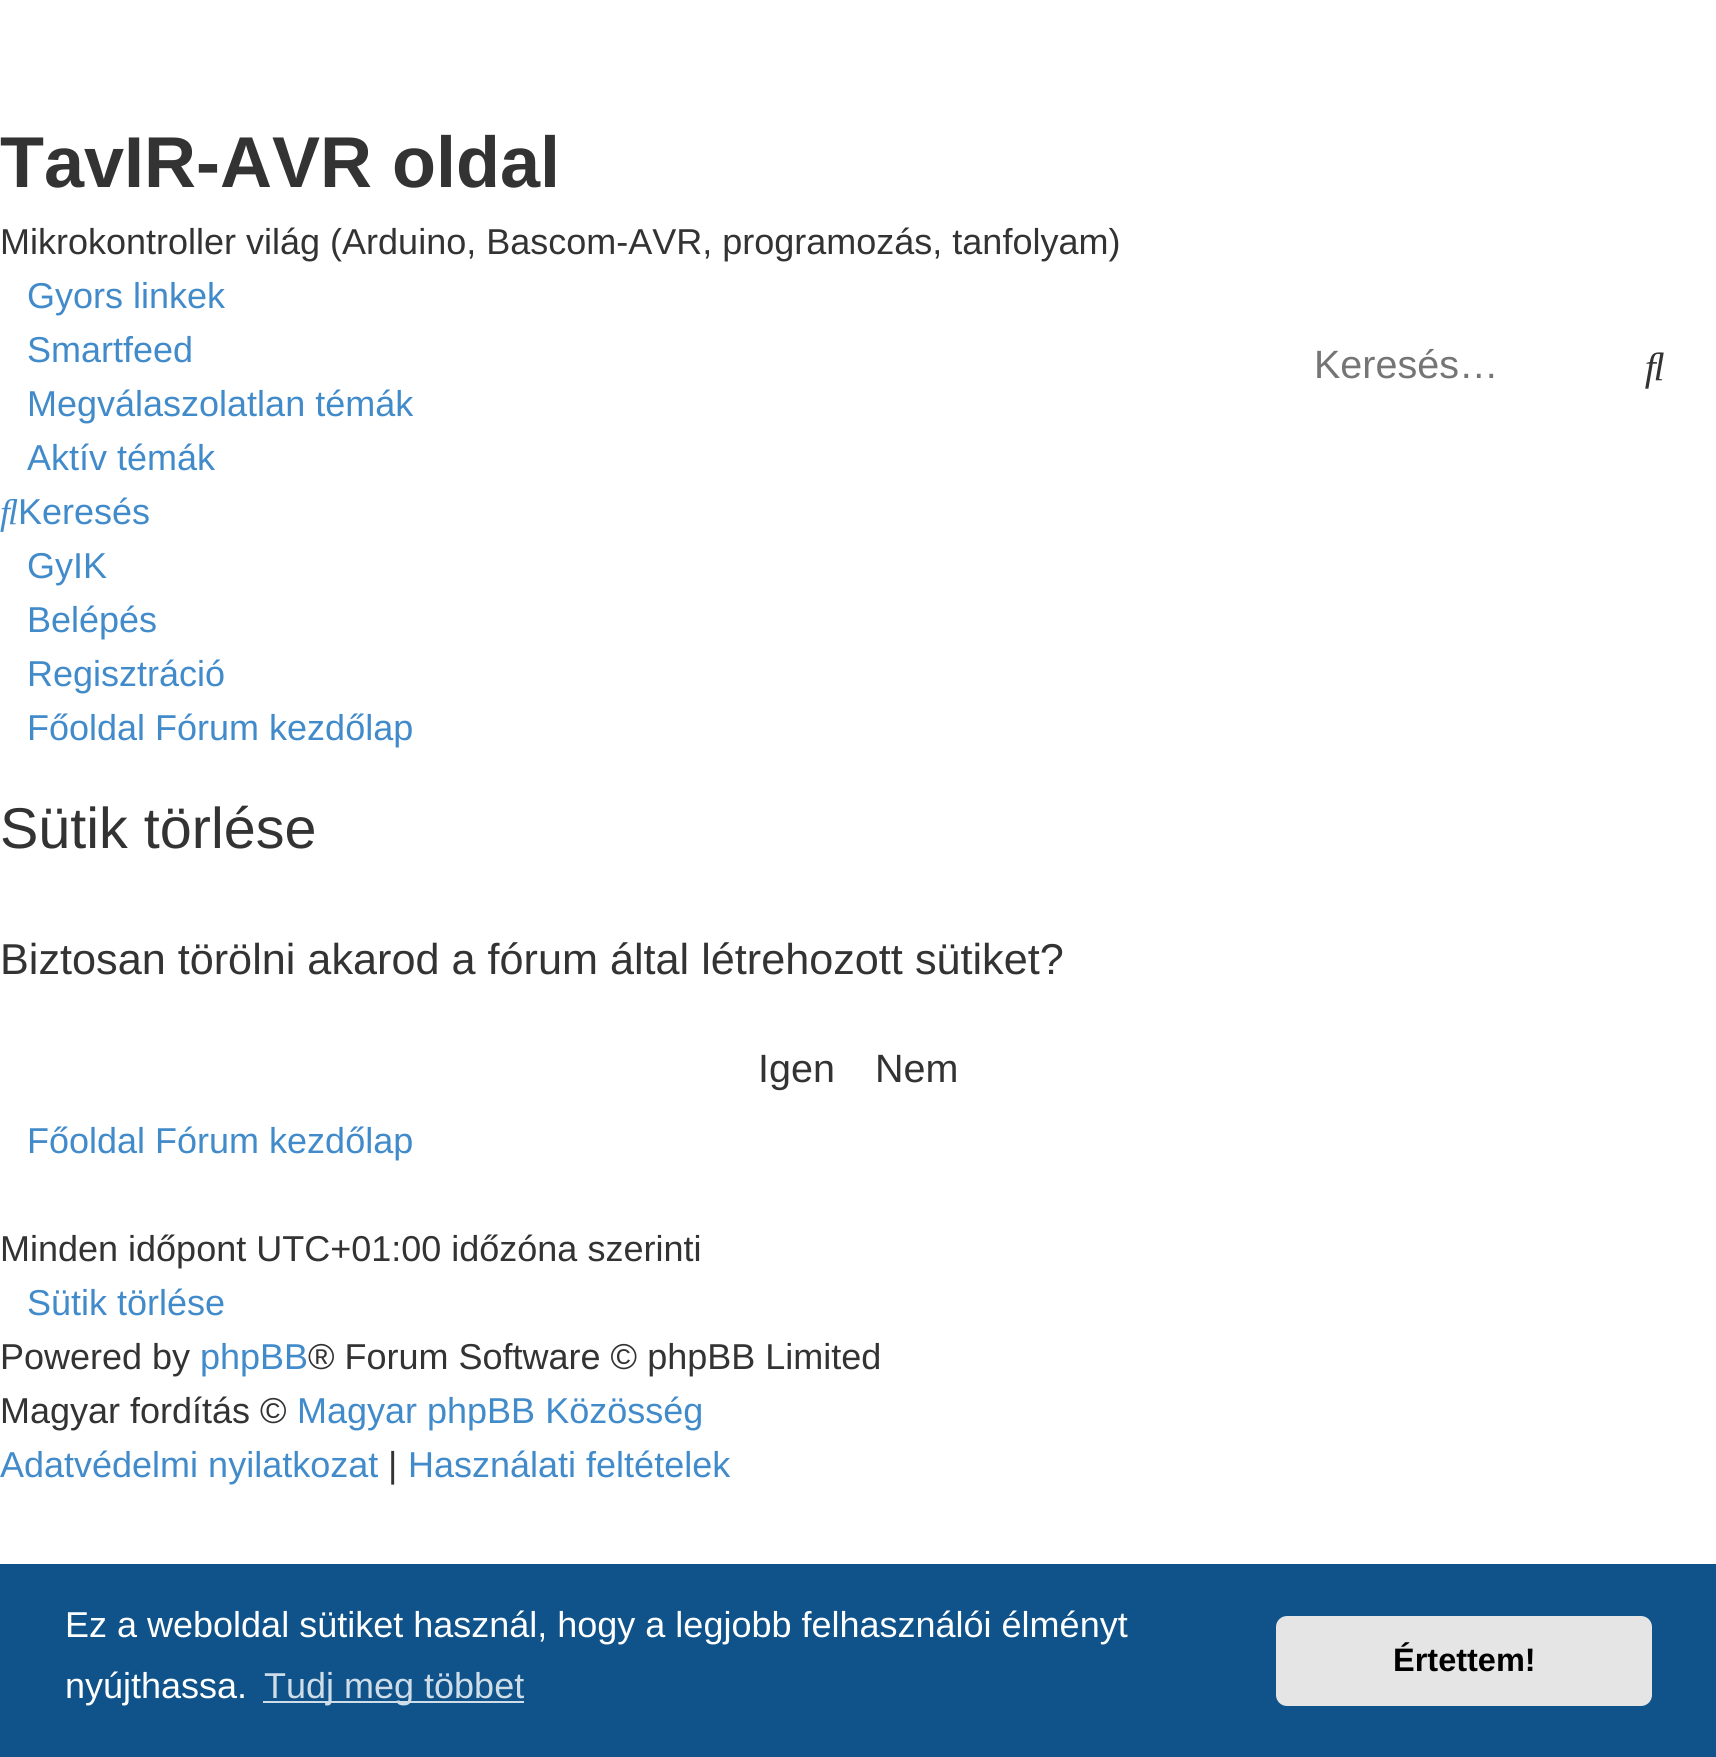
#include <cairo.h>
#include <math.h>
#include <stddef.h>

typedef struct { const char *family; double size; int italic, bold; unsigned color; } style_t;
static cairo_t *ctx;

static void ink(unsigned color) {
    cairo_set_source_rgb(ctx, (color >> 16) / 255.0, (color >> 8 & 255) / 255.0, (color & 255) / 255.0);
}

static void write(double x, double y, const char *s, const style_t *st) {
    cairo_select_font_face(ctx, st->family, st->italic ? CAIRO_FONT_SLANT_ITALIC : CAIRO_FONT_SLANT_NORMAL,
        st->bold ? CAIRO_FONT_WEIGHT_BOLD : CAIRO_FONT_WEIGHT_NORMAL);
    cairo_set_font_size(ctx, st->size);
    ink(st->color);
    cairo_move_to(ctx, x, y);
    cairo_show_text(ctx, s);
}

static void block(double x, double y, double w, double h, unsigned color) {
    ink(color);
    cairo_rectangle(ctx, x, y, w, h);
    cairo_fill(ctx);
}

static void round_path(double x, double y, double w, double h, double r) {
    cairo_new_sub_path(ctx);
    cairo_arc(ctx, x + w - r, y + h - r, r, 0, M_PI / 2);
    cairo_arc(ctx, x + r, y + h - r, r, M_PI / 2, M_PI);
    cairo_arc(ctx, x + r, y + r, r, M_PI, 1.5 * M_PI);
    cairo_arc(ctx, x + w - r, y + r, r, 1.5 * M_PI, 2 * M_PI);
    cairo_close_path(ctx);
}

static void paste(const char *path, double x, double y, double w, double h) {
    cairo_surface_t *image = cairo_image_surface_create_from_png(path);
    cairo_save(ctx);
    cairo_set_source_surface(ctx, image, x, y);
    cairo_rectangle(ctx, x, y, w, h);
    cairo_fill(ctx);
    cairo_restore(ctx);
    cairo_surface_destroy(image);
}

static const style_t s1 = {"Liberation Sans", 72, 0, 1, 0x333333};
static const style_t s2 = {"Liberation Sans", 36, 0, 0, 0x333333};
static const style_t s3 = {"Liberation Sans", 39.5, 0, 0, 0x757575};
static const style_t s4 = {"Liberation Sans", 36, 0, 0, 0x428bca};
static const style_t s5 = {"Liberation Sans", 57.5, 0, 0, 0x333333};
static const style_t s6 = {"Liberation Sans", 43.2, 0, 0, 0x333333};
static const style_t s7 = {"Liberation Sans", 39.5, 0, 0, 0x333333};
static const style_t s8 = {"Liberation Sans", 36, 0, 0, 0xffffff};
static const style_t s9 = {"Liberation Sans", 36, 0, 0, 0xcfdde8};
static const style_t s10 = {"Liberation Sans", 32.5, 0, 1, 0x000000};

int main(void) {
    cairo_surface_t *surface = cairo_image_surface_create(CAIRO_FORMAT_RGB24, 1716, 1757);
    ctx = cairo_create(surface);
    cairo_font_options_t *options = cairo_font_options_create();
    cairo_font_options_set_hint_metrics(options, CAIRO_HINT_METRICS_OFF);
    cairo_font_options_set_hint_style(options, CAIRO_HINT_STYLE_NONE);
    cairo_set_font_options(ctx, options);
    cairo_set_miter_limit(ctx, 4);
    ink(0xffffff);
    cairo_paint(ctx);
    write(0, 187, "TavIR-AVR oldal", &s1);
    write(0, 254, "Mikrokontroller világ (Arduino, Bascom-AVR, programozás, tanfolyam)", &s2);
    write(1314, 378, "Keresés…", &s3);
    paste("pic1.png", 1645, 352, 19, 37);
    write(27, 308, "Gyors linkek", &s4);
    write(27, 362, "Smartfeed", &s4);
    write(27, 416, "Megválaszolatlan témák", &s4);
    write(27, 470, "Aktív témák", &s4);
    paste("pic2.png", 0, 498, 18, 34);
    write(18, 524, "Keresés", &s4);
    write(27, 578, "GyIK", &s4);
    write(27, 632, "Belépés", &s4);
    write(27, 686, "Regisztráció", &s4);
    write(27, 740, "Főoldal Fórum kezdőlap", &s4);
    write(0, 848, "Sütik törlése", &s5);
    write(0, 974, "Biztosan törölni akarod a fórum által létrehozott sütiket?", &s6);
    write(758, 1082, "Igen", &s7);
    write(875, 1082, "Nem", &s7);
    write(27, 1153, "Főoldal Fórum kezdőlap", &s4);
    write(0, 1261, "Minden időpont UTC+01:00 időzóna szerinti", &s2);
    write(27, 1315, "Sütik törlése", &s4);
    write(0, 1369, "Powered by", &s2);
    write(200, 1369, "phpBB", &s4);
    write(308, 1369, "® Forum Software © phpBB Limited", &s2);
    write(0, 1423, "Magyar fordítás ©", &s2);
    write(297, 1423, "Magyar phpBB Közösség", &s4);
    write(0, 1477, "Adatvédelmi nyilatkozat", &s4);
    write(388, 1477, "|", &s2);
    write(408, 1477, "Használati feltételek", &s4);
    block(0, 1564, 1716, 193, 0x0f538a);
    write(65, 1637, "Ez a weboldal sütiket használ, hogy a legjobb felhasználói élményt", &s8);
    write(65, 1698, "nyújthassa.", &s8);
    block(263, 1701, 261, 2, 0xcfdde8);
    write(264, 1698, "Tudj meg többet", &s9);
    ink(0xe5e5e5);
    round_path(1276, 1616, 376, 90, 11);
    cairo_fill(ctx);
    write(1393, 1671, "Értettem!", &s10);
    cairo_surface_write_to_png(surface, "screenshot.png");
    cairo_font_options_destroy(options);
    cairo_destroy(ctx);
    cairo_surface_destroy(surface);
    return 0;
}
